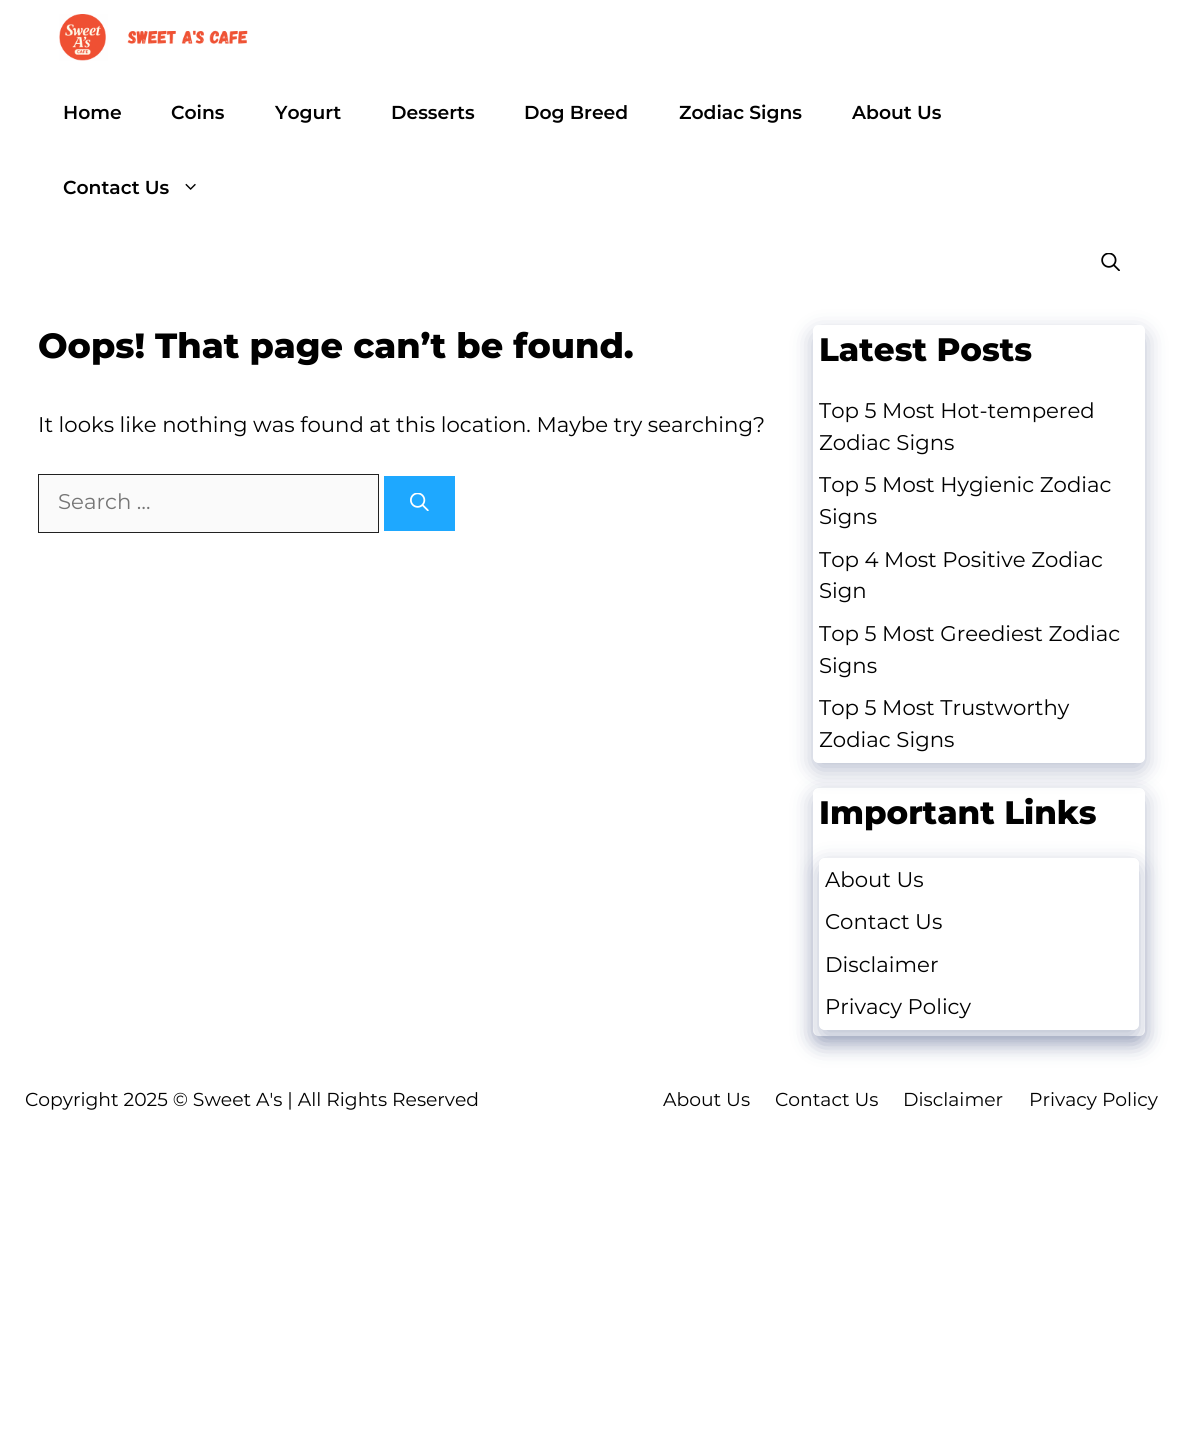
#include <cairo.h>
#include <math.h>
#include <stddef.h>

typedef struct { const char *family; double size; int italic, bold; unsigned color; } style_t;
static cairo_t *ctx;

static void ink(unsigned color) {
    cairo_set_source_rgb(ctx, (color >> 16) / 255.0, (color >> 8 & 255) / 255.0, (color & 255) / 255.0);
}

static void write(double x, double y, const char *s, const style_t *st) {
    cairo_select_font_face(ctx, st->family, st->italic ? CAIRO_FONT_SLANT_ITALIC : CAIRO_FONT_SLANT_NORMAL,
        st->bold ? CAIRO_FONT_WEIGHT_BOLD : CAIRO_FONT_WEIGHT_NORMAL);
    cairo_set_font_size(ctx, st->size);
    ink(st->color);
    cairo_move_to(ctx, x, y);
    cairo_show_text(ctx, s);
}

static void block(double x, double y, double w, double h, unsigned color) {
    ink(color);
    cairo_rectangle(ctx, x, y, w, h);
    cairo_fill(ctx);
}

static void round_path(double x, double y, double w, double h, double r) {
    cairo_new_sub_path(ctx);
    cairo_arc(ctx, x + w - r, y + h - r, r, 0, M_PI / 2);
    cairo_arc(ctx, x + r, y + h - r, r, M_PI / 2, M_PI);
    cairo_arc(ctx, x + r, y + r, r, M_PI, 1.5 * M_PI);
    cairo_arc(ctx, x + w - r, y + r, r, 1.5 * M_PI, 2 * M_PI);
    cairo_close_path(ctx);
}

static void blur_box(double x, double y, double w, double h, double r, double blur, double alpha) {
    cairo_push_group_with_content(ctx, CAIRO_CONTENT_ALPHA);
    cairo_set_operator(ctx, CAIRO_OPERATOR_SOURCE);
    for (int i = 15; i >= -15 && fmin(w, h) + blur * i / 3 > 0; i -= 2) {
        double e = blur * i / 6;
        cairo_set_source_rgba(ctx, 0, 0, 0, alpha * erfc((i - 1) / 8.5) / 2);
        round_path(x - e, y - e, w + 2 * e, h + 2 * e, fmax(0, fmin(r + e + blur * .6, fmin(w, h) / 2 + e)));
        cairo_fill(ctx);
    }
    cairo_pattern_t *soft = cairo_pop_group(ctx);
    cairo_mask(ctx, soft);
    cairo_pattern_destroy(soft);
}

static void paste(const char *path, double x, double y, double w, double h) {
    cairo_surface_t *image = cairo_image_surface_create_from_png(path);
    cairo_save(ctx);
    cairo_set_source_surface(ctx, image, x, y);
    cairo_rectangle(ctx, x, y, w, h);
    cairo_fill(ctx);
    cairo_restore(ctx);
    cairo_surface_destroy(image);
}

static const style_t s1 = {"Montserrat SemiBold", 18.75, 0, 0, 0x000000};
static const style_t s2 = {"Montserrat ExtraBold", 35, 0, 0, 0x000000};
static const style_t s3 = {"Montserrat", 21.25, 0, 0, 0x000000};
static const style_t s4 = {"Montserrat", 21.25, 0, 0, 0x757575};
static const style_t s5 = {"Montserrat ExtraBold", 32.5, 0, 0, 0x000000};
static const style_t s6 = {"Montserrat", 18.75, 0, 0, 0x000000};

int main(void) {
    cairo_surface_t *surface = cairo_image_surface_create(CAIRO_FORMAT_RGB24, 1182, 1430);
    ctx = cairo_create(surface);
    cairo_font_options_t *options = cairo_font_options_create();
    cairo_font_options_set_hint_metrics(options, CAIRO_HINT_METRICS_OFF);
    cairo_font_options_set_hint_style(options, CAIRO_HINT_STYLE_NONE);
    cairo_set_font_options(ctx, options);
    cairo_set_miter_limit(ctx, 4);
    ink(0xffffff);
    cairo_paint(ctx);
    paste("pic1.png", 59, 14, 189, 47);
    write(63, 119, "Home", &s1);
    write(171, 119, "Coins", &s1);
    write(275, 119, "Yogurt", &s1);
    write(391, 119, "Desserts", &s1);
    write(524, 119, "Dog Breed", &s1);
    write(679, 119, "Zodiac Signs", &s1);
    write(852, 119, "About Us", &s1);
    write(63, 194, "Contact Us", &s1);
    paste("pic2.png", 185, 183, 11, 7);
    paste("pic3.png", 1101, 253, 19, 18);
    write(38, 358, "Oops! That page can’t be found.", &s2);
    write(38, 432, "It looks like nothing was found at this location. Maybe try searching?", &s3);
    ink(0xfafafa);
    cairo_rectangle(ctx, 38.5, 474.5, 340, 58);
    cairo_fill_preserve(ctx);
    ink(0x212121);
    cairo_set_line_width(ctx, 1);
    cairo_stroke(ctx);
    write(58, 509, "Search …", &s4);
    block(384, 476, 71, 55, 0x1ea8ff);
    paste("pic4.png", 410, 493, 19, 18);
    cairo_save(ctx);
    cairo_set_fill_rule(ctx, CAIRO_FILL_RULE_EVEN_ODD);
    cairo_new_path(ctx);
    cairo_move_to(ctx, 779, 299);
    cairo_line_to(ctx, 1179, 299);
    cairo_line_to(ctx, 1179, 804);
    cairo_line_to(ctx, 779, 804);
    cairo_close_path(ctx);
    cairo_move_to(ctx, 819, 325);
    cairo_line_to(ctx, 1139, 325);
    cairo_curve_to(ctx, 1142.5, 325, 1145, 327.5, 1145, 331);
    cairo_line_to(ctx, 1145, 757);
    cairo_curve_to(ctx, 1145, 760.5, 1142.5, 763, 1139, 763);
    cairo_line_to(ctx, 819, 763);
    cairo_curve_to(ctx, 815.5, 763, 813, 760.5, 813, 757);
    cairo_line_to(ctx, 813, 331);
    cairo_curve_to(ctx, 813, 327.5, 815.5, 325, 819, 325);
    cairo_close_path(ctx);
    cairo_clip(ctx);
    ink(0x172b63);
    blur_box(813, 333, 332, 437, 6, 11, 0.3);
    cairo_restore(ctx);
    write(819, 361, "Latest Posts", &s5);
    write(819, 418, "Top 5 Most Hot-tempered", &s3);
    write(819, 450, "Zodiac Signs", &s3);
    write(819, 492, "Top 5 Most Hygienic Zodiac", &s3);
    write(819, 524, "Signs", &s3);
    write(819, 567, "Top 4 Most Positive Zodiac", &s3);
    write(819, 598, "Sign", &s3);
    write(819, 641, "Top 5 Most Greediest Zodiac", &s3);
    write(819, 673, "Signs", &s3);
    write(819, 715, "Top 5 Most Trustworthy", &s3);
    write(819, 747, "Zodiac Signs", &s3);
    cairo_save(ctx);
    cairo_set_fill_rule(ctx, CAIRO_FILL_RULE_EVEN_ODD);
    cairo_new_path(ctx);
    cairo_move_to(ctx, 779, 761);
    cairo_line_to(ctx, 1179, 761);
    cairo_line_to(ctx, 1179, 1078);
    cairo_line_to(ctx, 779, 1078);
    cairo_close_path(ctx);
    cairo_move_to(ctx, 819, 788);
    cairo_line_to(ctx, 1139, 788);
    cairo_curve_to(ctx, 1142.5, 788, 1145, 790.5, 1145, 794);
    cairo_line_to(ctx, 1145, 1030);
    cairo_curve_to(ctx, 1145, 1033.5, 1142.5, 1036, 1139, 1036);
    cairo_line_to(ctx, 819, 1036);
    cairo_curve_to(ctx, 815.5, 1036, 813, 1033.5, 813, 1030);
    cairo_line_to(ctx, 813, 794);
    cairo_curve_to(ctx, 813, 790.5, 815.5, 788, 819, 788);
    cairo_close_path(ctx);
    cairo_clip(ctx);
    ink(0x172b63);
    blur_box(813, 795, 332, 249, 6, 11, 0.3);
    cairo_restore(ctx);
    write(819, 824, "Important Links", &s5);
    cairo_save(ctx);
    cairo_set_fill_rule(ctx, CAIRO_FILL_RULE_EVEN_ODD);
    cairo_new_path(ctx);
    cairo_move_to(ctx, 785, 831);
    cairo_line_to(ctx, 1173, 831);
    cairo_line_to(ctx, 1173, 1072);
    cairo_line_to(ctx, 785, 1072);
    cairo_close_path(ctx);
    cairo_move_to(ctx, 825, 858);
    cairo_line_to(ctx, 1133, 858);
    cairo_curve_to(ctx, 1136.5, 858, 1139, 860.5, 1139, 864);
    cairo_line_to(ctx, 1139, 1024);
    cairo_curve_to(ctx, 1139, 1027.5, 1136.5, 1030, 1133, 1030);
    cairo_line_to(ctx, 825, 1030);
    cairo_curve_to(ctx, 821.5, 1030, 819, 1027.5, 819, 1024);
    cairo_line_to(ctx, 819, 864);
    cairo_curve_to(ctx, 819, 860.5, 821.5, 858, 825, 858);
    cairo_close_path(ctx);
    cairo_clip(ctx);
    ink(0x172b63);
    blur_box(819, 865, 320, 173, 6, 11, 0.3);
    cairo_restore(ctx);
    write(825, 887, "About Us", &s3);
    write(825, 929, "Contact Us", &s3);
    write(825, 972, "Disclaimer", &s3);
    write(825, 1014, "Privacy Policy", &s3);
    write(25, 1106, "Copyright 2025 © Sweet A's | All Rights Reserved", &s6);
    write(663, 1106, "About Us", &s6);
    write(775, 1106, "Contact Us", &s6);
    write(903, 1106, "Disclaimer", &s6);
    write(1029, 1106, "Privacy Policy", &s6);
    cairo_surface_write_to_png(surface, "screenshot.png");
    cairo_font_options_destroy(options);
    cairo_destroy(ctx);
    cairo_surface_destroy(surface);
    return 0;
}
